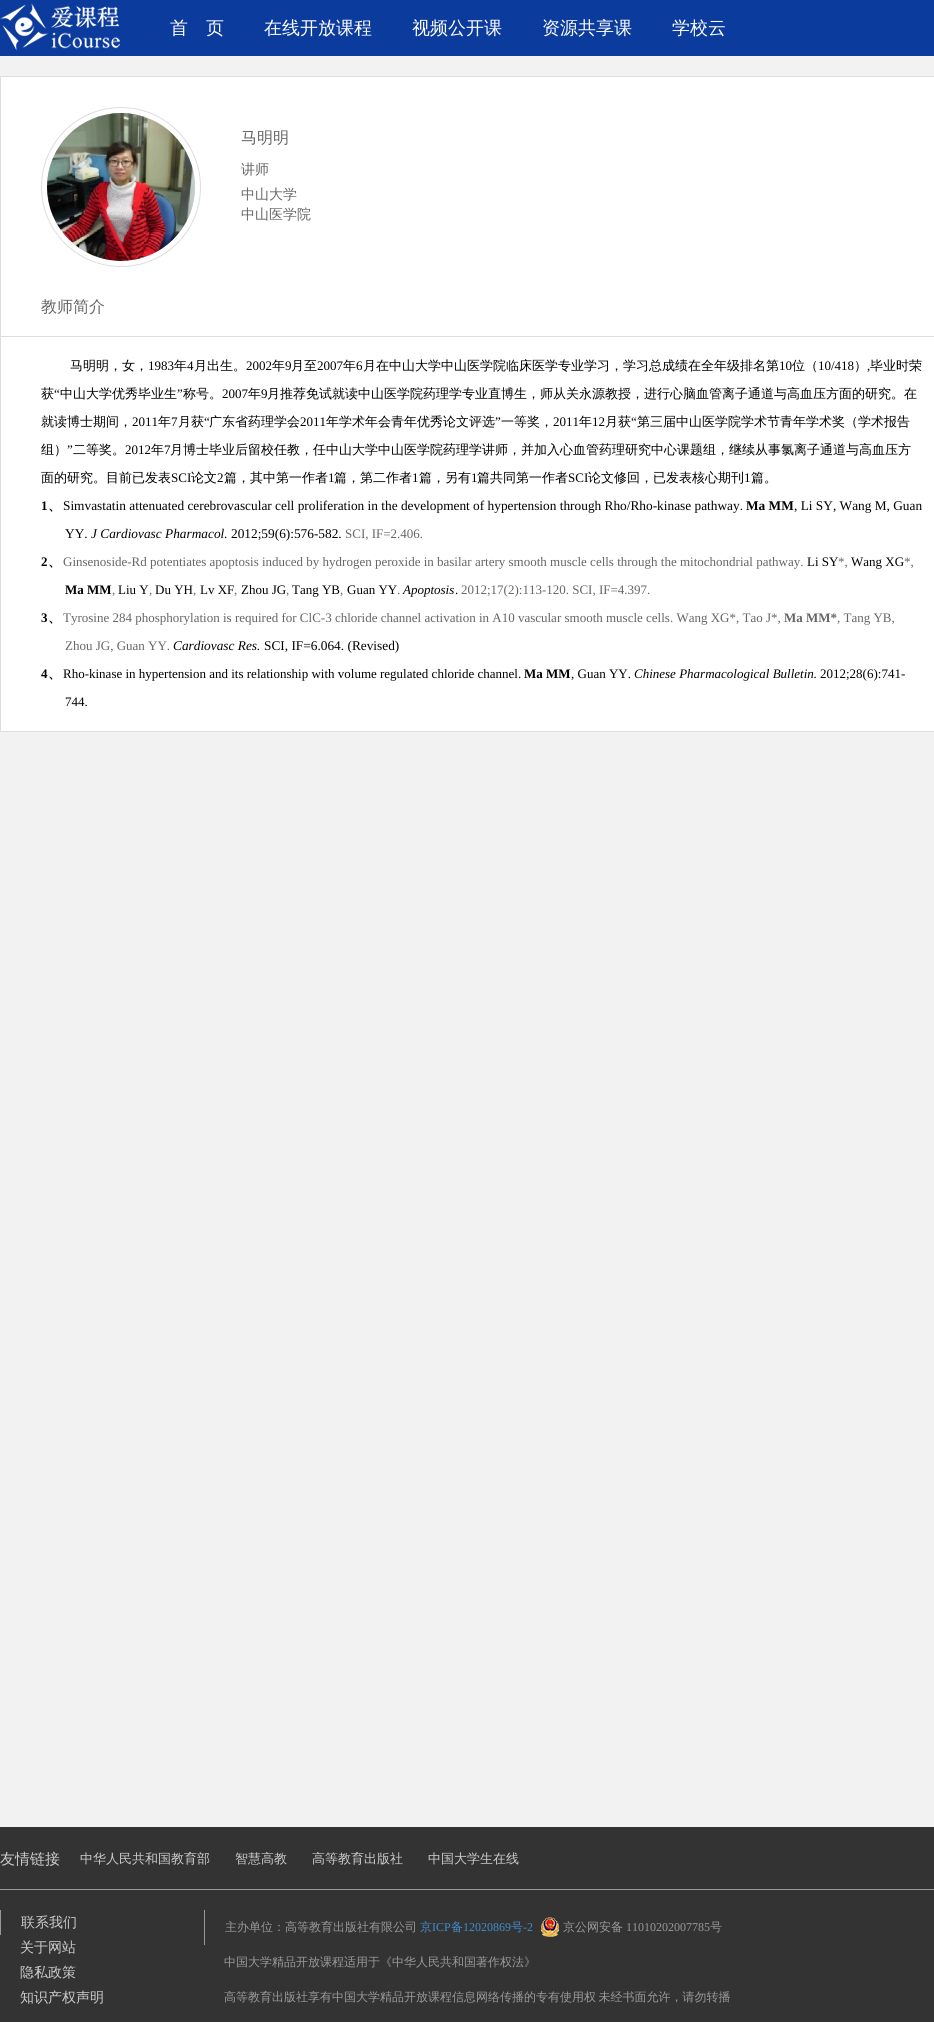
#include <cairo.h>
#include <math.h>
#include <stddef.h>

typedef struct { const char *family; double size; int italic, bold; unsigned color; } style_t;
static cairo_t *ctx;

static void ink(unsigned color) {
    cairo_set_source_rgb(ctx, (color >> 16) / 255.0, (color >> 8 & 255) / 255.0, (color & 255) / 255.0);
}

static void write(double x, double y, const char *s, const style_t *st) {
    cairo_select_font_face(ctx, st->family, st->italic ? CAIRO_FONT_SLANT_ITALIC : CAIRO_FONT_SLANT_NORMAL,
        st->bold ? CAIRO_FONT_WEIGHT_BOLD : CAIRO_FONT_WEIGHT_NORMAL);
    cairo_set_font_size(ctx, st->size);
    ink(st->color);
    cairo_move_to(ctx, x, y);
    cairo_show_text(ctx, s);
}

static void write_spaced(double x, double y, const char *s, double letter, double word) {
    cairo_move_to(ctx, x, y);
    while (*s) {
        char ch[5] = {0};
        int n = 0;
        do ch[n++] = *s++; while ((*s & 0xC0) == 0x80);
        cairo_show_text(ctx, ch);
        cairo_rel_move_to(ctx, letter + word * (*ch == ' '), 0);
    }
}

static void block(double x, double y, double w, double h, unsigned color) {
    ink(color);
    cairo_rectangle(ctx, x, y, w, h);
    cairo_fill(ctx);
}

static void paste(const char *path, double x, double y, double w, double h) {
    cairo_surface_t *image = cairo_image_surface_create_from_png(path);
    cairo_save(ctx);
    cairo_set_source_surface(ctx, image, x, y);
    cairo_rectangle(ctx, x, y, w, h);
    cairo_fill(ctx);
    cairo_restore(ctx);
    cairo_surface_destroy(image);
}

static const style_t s1 = {"WenQuanYi Zen Hei Medium", 18, 0, 0, 0xffffff};
static const style_t s2 = {"WenQuanYi Zen Hei Medium", 16, 0, 0, 0x666666};
static const style_t s3 = {"WenQuanYi Zen Hei Medium", 14, 0, 0, 0x666666};
static const style_t s4 = {"WenQuanYi Zen Hei Medium", 13, 0, 0, 0x000000};
static const style_t s5 = {"Liberation Serif", 13, 0, 0, 0x000000};
static const style_t s6 = {"Liberation Serif", 13, 0, 1, 0x000000};
static const style_t s7 = {"WenQuanYi Zen Hei", 13, 0, 1, 0x000000};
static const style_t s8 = {"Liberation Serif", 13.33, 0, 0, 0x000000};
static const style_t s9 = {"Liberation Serif", 13.33, 0, 1, 0x000000};
static const style_t s10 = {"Liberation Serif", 13.33, 1, 0, 0x000000};
static const style_t s11 = {"Liberation Serif", 13, 0, 0, 0x666666};
static const style_t s12 = {"Liberation Serif", 13, 1, 0, 0x000000};
static const style_t s13 = {"Liberation Serif", 13, 0, 1, 0x666666};
static const style_t s14 = {"WenQuanYi Zen Hei Medium", 15, 0, 0, 0xcccccc};
static const style_t s15 = {"WenQuanYi Zen Hei Medium", 13, 0, 0, 0xcccccc};
static const style_t s16 = {"WenQuanYi Zen Hei Medium", 14, 0, 0, 0xcccccc};
static const style_t s17 = {"WenQuanYi Zen Hei Medium", 12, 0, 0, 0x999999};
static const style_t s18 = {"WenQuanYi Zen Hei Medium", 12, 0, 0, 0x428bca};
static const style_t s19 = {"Liberation Serif", 12, 0, 0, 0x428bca};
static const style_t s20 = {"Liberation Serif", 12, 0, 0, 0x999999};

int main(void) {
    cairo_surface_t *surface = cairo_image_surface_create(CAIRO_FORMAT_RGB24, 934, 2022);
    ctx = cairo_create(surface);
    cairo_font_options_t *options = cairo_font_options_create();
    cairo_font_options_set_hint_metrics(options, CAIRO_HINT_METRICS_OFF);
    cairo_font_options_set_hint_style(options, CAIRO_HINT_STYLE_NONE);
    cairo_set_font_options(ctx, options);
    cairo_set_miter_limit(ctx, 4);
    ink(0xf2f2f2);
    cairo_paint(ctx);
    block(0, 0, 934, 56, 0x0b3b9d);
    paste("pic1.png", 0, 3, 120, 48);
    write(170, 34, "首", &s1);
    write(206, 34, "页", &s1);
    write(264, 34, "在线开放课程", &s1);
    write(412, 34, "视频公开课", &s1);
    write(542, 34, "资源共享课", &s1);
    write(672, 34, "学校云", &s1);
    cairo_rectangle(ctx, 0.5, 76.5, 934, 655);
    cairo_fill_preserve(ctx);
    ink(0xdddddd);
    cairo_set_line_width(ctx, 1);
    cairo_stroke(ctx);
    cairo_arc(ctx, 121, 187, 79.5, 0, 2 * M_PI);
    cairo_stroke(ctx);
    cairo_arc(ctx, 121, 187, 74, 0, 2 * M_PI);
    cairo_fill(ctx);
    paste("pic2.png", 47, 113, 148, 148);
    write(241, 143, "马明明", &s2);
    write(241, 174, "讲师", &s3);
    write(241, 199, "中山大学", &s3);
    write(241, 219, "中山医学院", &s3);
    block(1, 336, 933, 1, 0xdddddd);
    write(41, 312, "教师简介", &s2);
    write(70, 370, "马明明，女，", &s4);
    write(148, 370, "1983", &s5);
    write(174, 370, "年", &s4);
    write(187, 370, "4", &s5);
    write(194, 370, "月出生。", &s4);
    write(246, 370, "2002", &s5);
    write(272, 370, "年", &s4);
    write(285, 370, "9", &s5);
    write(291, 370, "月至", &s4);
    write(317, 370, "2007", &s5);
    write(343, 370, "年", &s4);
    write(356, 370, "6", &s5);
    write(363, 370, "月在中山大学中山医学院临床医学专业学习，学习总成绩在全年级排名第", &s4);
    write(779, 370, "10", &s5);
    write(792, 370, "位（", &s4);
    write(818, 370, "10/418", &s5);
    write(854, 370, "）", &s4);
    write(867, 370, ",", &s5);
    write(870, 370, "毕业时荣", &s4);
    write(41, 398, "获", &s4);
    write(54, 398, "“", &s5);
    write(60, 398, "中山大学优秀毕业生", &s4);
    write(177, 398, "”", &s5);
    write(183, 398, "称号。", &s4);
    write(222, 398, "2007", &s5);
    write(248, 398, "年", &s4);
    write(261, 398, "9", &s5);
    write(267, 398, "月推荐免试就读中山医学院药理学专业直博生，师从关永源教授，进行心脑血管离子通道与高血压方面的研究。在", &s4);
    write(41, 426, "就读博士期间，", &s4);
    write(132, 426, "2011", &s5);
    write(158, 426, "年", &s4);
    write(171, 426, "7", &s5);
    write(178, 426, "月获", &s4);
    write(204, 426, "“", &s5);
    write(209, 426, "广东省药理学会", &s4);
    write(300, 426, "2011", &s5);
    write(326, 426, "年学术年会青年优秀论文评选", &s4);
    write(495, 426, "”", &s5);
    write(501, 426, "一等奖，", &s4);
    write(553, 426, "2011", &s5);
    write(579, 426, "年", &s4);
    write(592, 426, "12", &s5);
    write(605, 426, "月获", &s4);
    write(631, 426, "“", &s5);
    write(637, 426, "第三届中山医学院学术节青年学术奖（学术报告", &s4);
    write(41, 454, "组）", &s4);
    write(67, 454, "”", &s5);
    write(73, 454, "二等奖。", &s4);
    write(125, 454, "2012", &s5);
    write(151, 454, "年", &s4);
    write(164, 454, "7", &s5);
    write(170, 454, "月博士毕业后留校任教，任中山大学中山医学院药理学讲师，并加入心血管药理研究中心课题组，继续从事氯离子通道与高血压方", &s4);
    write(41, 482, "面的研究。目前已发表", &s4);
    write(171, 482, "SCI", &s5);
    write(191, 482, "论文", &s4);
    write(217, 482, "2", &s5);
    write(224, 482, "篇，其中第一作者", &s4);
    write(328, 482, "1", &s5);
    write(334, 482, "篇，第二作者", &s4);
    write(412, 482, "1", &s5);
    write(419, 482, "篇，另有", &s4);
    write(471, 482, "1", &s5);
    write(477, 482, "篇共同第一作者", &s4);
    write(568, 482, "SCI", &s5);
    write(588, 482, "论文修回，已发表核心期刊", &s4);
    write(744, 482, "1", &s5);
    write(751, 482, "篇。", &s4);
    write(41, 510, "1", &s6);
    write(48, 510, "、", &s7);
    write(63, 510, "Simvastatin attenuated cerebrovascular cell proliferation in the development of hypertension through Rho/Rho-kinase pathway.", &s8);
    write(746, 510, "Ma MM", &s9);
    write(794, 510, ", Li SY, Wang M, Guan", &s8);
    write(65, 538, "YY.", &s8);
    write(91, 538, "J Cardiovasc Pharmacol.", &s10);
    write(231, 538, "2012;59(6):576-582.", &s8);
    write(345, 538, "SCI, IF=2.406.", &s11);
    write(41, 566, "2", &s6);
    write(48, 566, "、", &s7);
    write(63, 566, "Ginsenoside-Rd potentiates apoptosis induced by hydrogen peroxide in basilar artery smooth muscle cells through the mitochondrial pathway.", &s11);
    write(807, 566, "Li SY", &s5);
    write(838, 566, "*,", &s11);
    write(851, 566, "Wang XG", &s5);
    write(904, 566, "*,", &s11);
    write(65, 594, "Ma MM", &s6);
    write(112, 594, ",", &s11);
    write(118, 594, "Liu Y", &s5);
    write(149, 594, ",", &s11);
    write(155, 594, "Du YH", &s5);
    write(193, 594, ",", &s11);
    write(200, 594, "Lv XF", &s5);
    write(234, 594, ",", &s11);
    write(241, 594, "Zhou JG", &s5);
    write(286, 594, ",", &s11);
    write(292, 594, "Tang YB", &s5);
    write(340, 594, ",", &s11);
    write(347, 594, "Guan YY", &s5);
    write(397, 594, ".", &s11);
    write(403, 594, "Apoptosis", &s12);
    write(455, 594, ".", &s5);
    write(461, 594, "2012;17(2):113-120. SCI, IF=4.397.", &s11);
    write(41, 622, "3", &s6);
    write(48, 622, "、", &s7);
    write(63, 622, "Tyrosine 284 phosphorylation is required for ClC-3 chloride channel activation in A10 vascular smooth muscle cells. Wang XG*, Tao J*,", &s11);
    write(784, 622, "Ma MM*", &s13);
    write(837, 622, ", Tang YB,", &s11);
    write(65, 650, "Zhou JG, Guan YY.", &s11);
    write(173, 650, "Cardiovasc Res.", &s10);
    write(264, 650, "SCI, IF=6.064. (Revised)", &s8);
    write(41, 678, "4", &s6);
    write(48, 678, "、", &s7);
    write(63, 678, "Rho-kinase in hypertension and its relationship with volume regulated chloride channel.", &s5);
    write(524, 678, "Ma MM", &s6);
    write(571, 678, ", Guan YY.", &s5);
    write(634, 678, "Chinese Pharmacological Bulletin.", &s12);
    write(820, 678, "2012;28(6):741-", &s5);
    write(65, 706, "744.", &s5);
    block(0, 1827, 934, 195, 0x333333);
    write(0, 1864, "友情链接", &s14);
    write(80, 1863, "中华人民共和国教育部", &s15);
    write(235, 1863, "智慧高教", &s15);
    write(312, 1863, "高等教育出版社", &s15);
    write(428, 1863, "中国大学生在线", &s15);
    block(0, 1889, 934, 1, 0x999999);
    block(0, 1910, 1, 25, 0x999999);
    write(21, 1927, "联系我们", &s16);
    write(20, 1952, "关于网站", &s16);
    write(20, 1977, "隐私政策", &s16);
    write(20, 2002, "知识产权声明", &s16);
    block(204, 1910, 1, 35, 0x999999);
    write(225, 1931, "主办单位：高等教育出版社有限公司", &s17);
    write(420, 1931, "京", &s18);
    write(432, 1931, "ICP", &s19);
    write(451, 1931, "备", &s18);
    write(463, 1931, "12020869", &s19);
    write(511, 1931, "号", &s18);
    write(523, 1931, "-2", &s19);
    paste("pic3.png", 541, 1917, 18, 20);
    write(563, 1931, "京公网安备", &s17);
    write(626, 1931, "11010202007785", &s20);
    write(710, 1931, "号", &s17);
    write(224, 1966, "中国大学精品开放课程适用于《中华人民共和国著作权法》", &s17);
    write_spaced(224, 2001, "高等教育出版社享有中国大学精品开放课程信息网络传播的专有使用权 未经书面允许，请勿转播", 0, -1);
    cairo_surface_write_to_png(surface, "screenshot.png");
    cairo_font_options_destroy(options);
    cairo_destroy(ctx);
    cairo_surface_destroy(surface);
    return 0;
}
